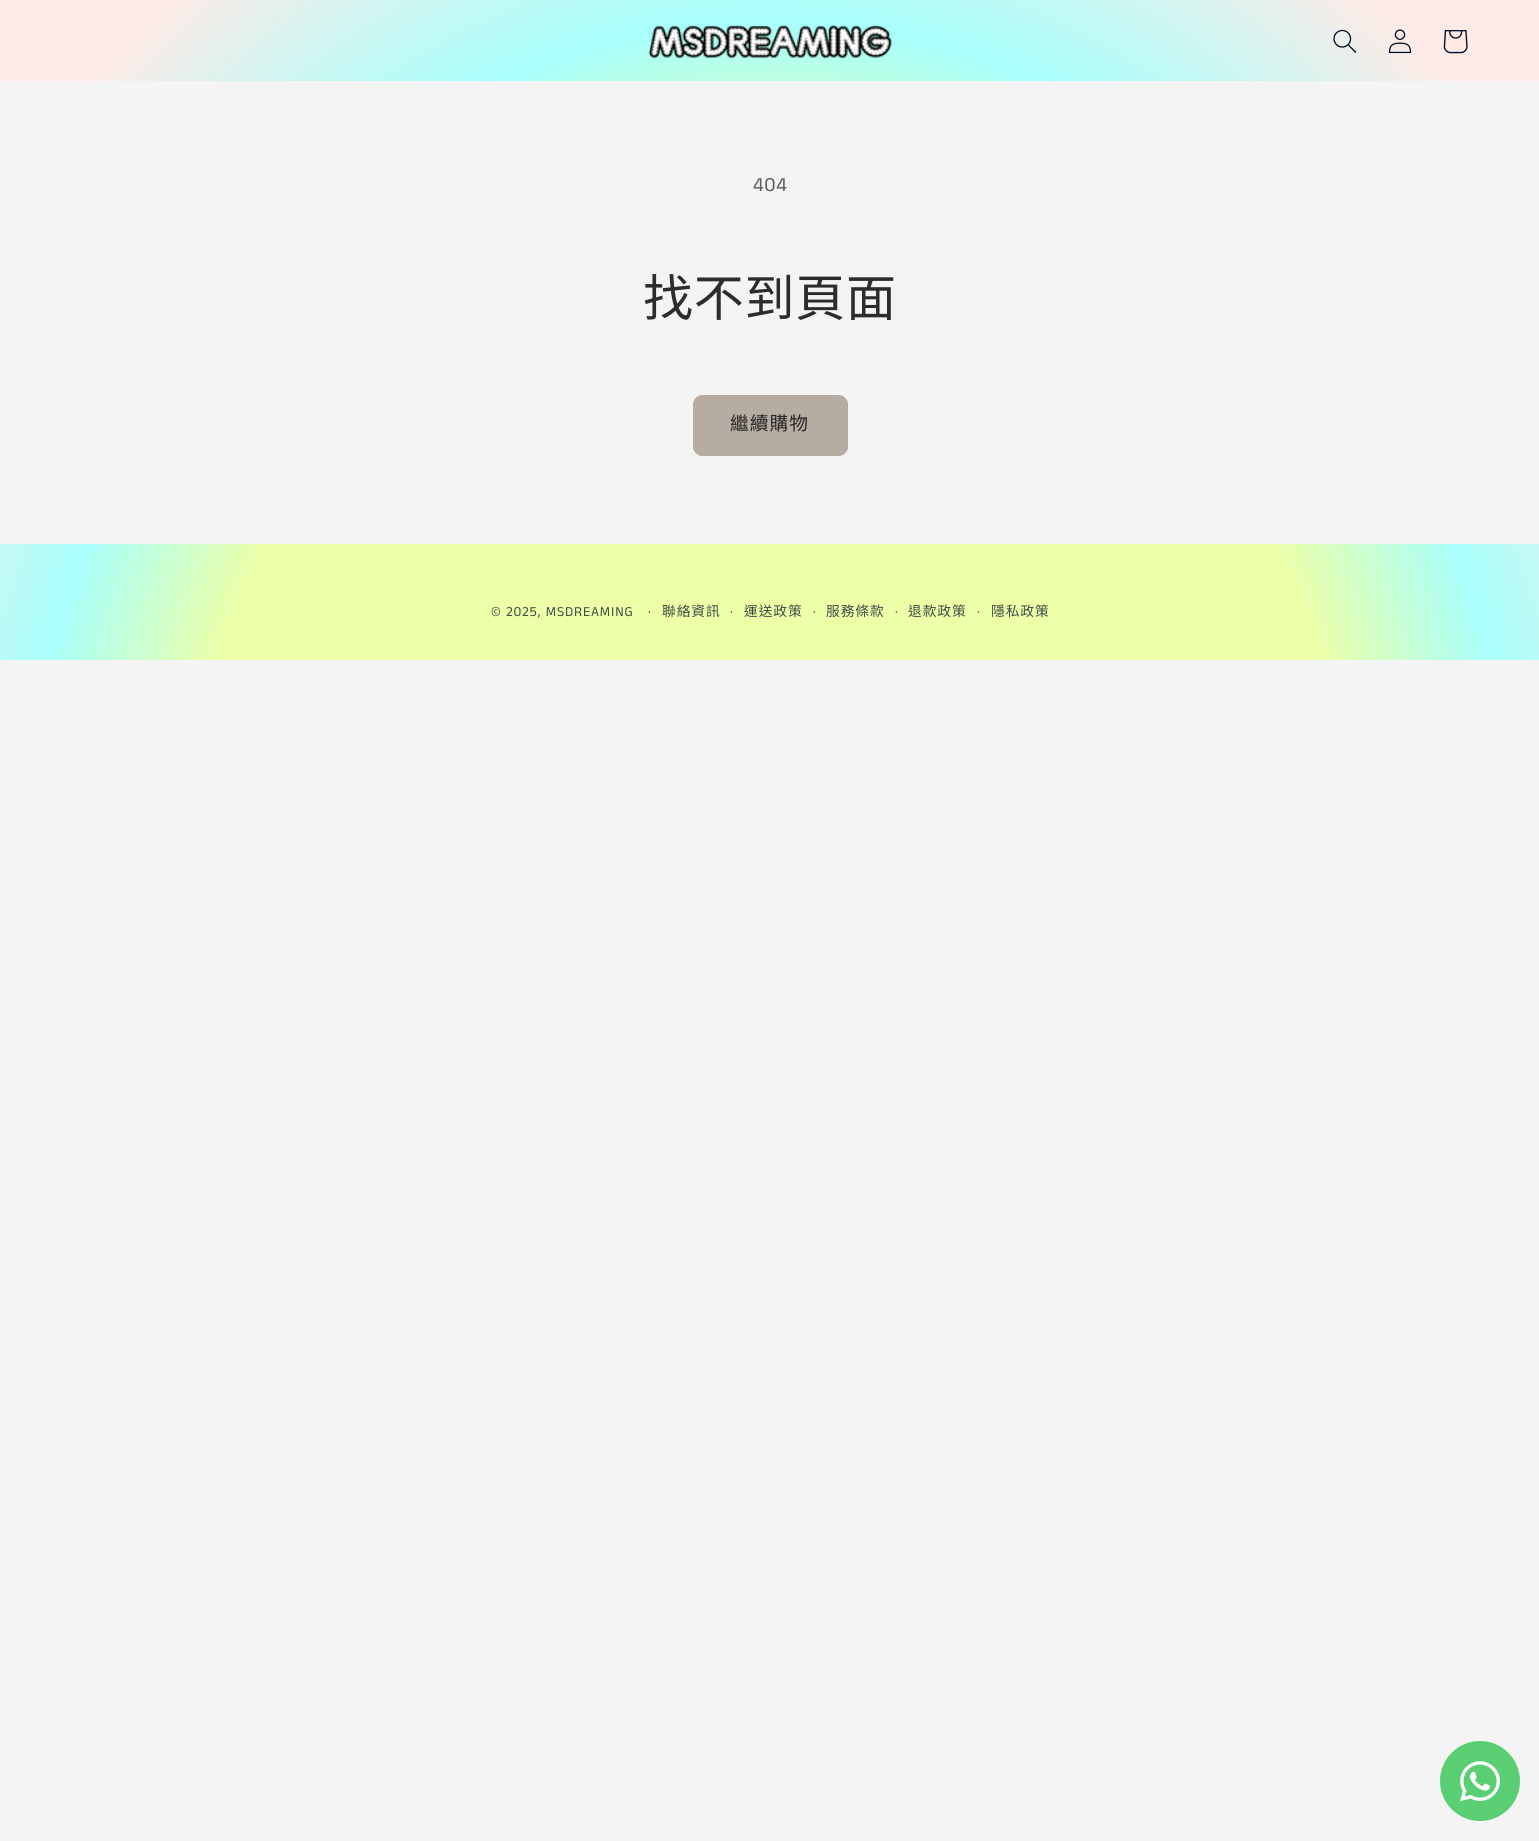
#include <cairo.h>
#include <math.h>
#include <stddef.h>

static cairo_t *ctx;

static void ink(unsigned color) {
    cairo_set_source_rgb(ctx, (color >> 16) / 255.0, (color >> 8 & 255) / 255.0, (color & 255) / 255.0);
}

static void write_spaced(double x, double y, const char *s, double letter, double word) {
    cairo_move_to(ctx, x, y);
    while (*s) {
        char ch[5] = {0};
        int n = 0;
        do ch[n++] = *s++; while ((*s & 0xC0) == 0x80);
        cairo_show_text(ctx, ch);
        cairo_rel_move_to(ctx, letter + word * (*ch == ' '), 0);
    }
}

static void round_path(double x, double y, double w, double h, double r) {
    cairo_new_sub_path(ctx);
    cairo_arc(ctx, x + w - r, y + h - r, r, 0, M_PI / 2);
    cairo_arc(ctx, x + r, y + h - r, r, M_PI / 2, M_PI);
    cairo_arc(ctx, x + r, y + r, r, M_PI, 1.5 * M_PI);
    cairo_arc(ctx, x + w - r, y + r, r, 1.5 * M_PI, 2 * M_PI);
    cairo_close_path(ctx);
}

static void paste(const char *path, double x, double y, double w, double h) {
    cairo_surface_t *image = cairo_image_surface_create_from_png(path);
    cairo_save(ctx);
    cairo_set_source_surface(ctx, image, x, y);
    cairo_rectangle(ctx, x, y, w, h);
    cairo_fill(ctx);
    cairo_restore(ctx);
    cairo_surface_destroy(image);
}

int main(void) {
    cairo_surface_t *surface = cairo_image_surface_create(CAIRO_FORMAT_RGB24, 1539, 1841);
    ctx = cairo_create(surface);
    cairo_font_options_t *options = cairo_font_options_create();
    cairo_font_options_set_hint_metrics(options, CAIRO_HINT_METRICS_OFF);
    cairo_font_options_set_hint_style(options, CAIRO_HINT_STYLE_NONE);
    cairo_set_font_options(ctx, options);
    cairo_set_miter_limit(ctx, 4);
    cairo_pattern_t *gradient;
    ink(0xf4f4f4);
    cairo_paint(ctx);
    gradient = cairo_pattern_create_radial(0, 0, 0, 0, 0, 1);
    cairo_pattern_set_matrix(gradient, &(cairo_matrix_t){1.0 / 1089, 0, 0, 1.0 / 1302, -1.0 * 770 / 1089, -1.0 * 921 / 1302});
    cairo_pattern_add_color_stop_rgba(gradient, 0, 0.929, 1, 0.655, 1);
    cairo_pattern_add_color_stop_rgba(gradient, 0.54, 0.929, 1, 0.655, 1);
    cairo_pattern_add_color_stop_rgba(gradient, 0.69, 0.659, 1, 0.984, 1);
    cairo_pattern_add_color_stop_rgba(gradient, 0.9, 1, 0.918, 0.902, 1);
    cairo_set_source(ctx, gradient);
    cairo_pattern_destroy(gradient);
    cairo_rectangle(ctx, 0, 0, 1539, 81);
    cairo_fill(ctx);
    paste("pic1.png", 648, 25, 244, 34);
    paste("pic2.png", 1333, 29, 24, 24);
    paste("pic3.png", 1388, 29, 24, 25);
    paste("pic4.png", 1443, 30, 25, 24);
    cairo_select_font_face(ctx, "Anek Tamil", CAIRO_FONT_SLANT_NORMAL, CAIRO_FONT_WEIGHT_NORMAL);
    cairo_set_font_size(ctx, 20);
    ink(0x5d5e5f);
    write_spaced(753, 191, "404", 0.75, 0);
    cairo_select_font_face(ctx, "Noto Sans CJK TC", CAIRO_FONT_SLANT_NORMAL, CAIRO_FONT_WEIGHT_NORMAL);
    cairo_set_font_size(ctx, 50);
    ink(0x2b2c2d);
    write_spaced(643, 316, "找不到頁面", 0.75, 0);
    ink(0xb7aca2);
    round_path(693, 395, 155, 61, 10);
    cairo_fill(ctx);
    round_path(694.5, 396.5, 152, 58, 8.5);
    cairo_set_line_width(ctx, 3);
    cairo_stroke(ctx);
    cairo_set_font_size(ctx, 18.75);
    ink(0x262626);
    write_spaced(730, 430, "繼續購物", 1, 0);
    gradient = cairo_pattern_create_radial(0, 0, 0, 0, 0, 1);
    cairo_pattern_set_matrix(gradient, &(cairo_matrix_t){1.0 / 1089, 0, 0, 1.0 / 1302, -1.0 * 770 / 1089, -1.0 * 921 / 1302});
    cairo_pattern_add_color_stop_rgba(gradient, 0, 0.929, 1, 0.655, 1);
    cairo_pattern_add_color_stop_rgba(gradient, 0.54, 0.929, 1, 0.655, 1);
    cairo_pattern_add_color_stop_rgba(gradient, 0.69, 0.659, 1, 0.984, 1);
    cairo_pattern_add_color_stop_rgba(gradient, 0.9, 1, 0.918, 0.902, 1);
    cairo_set_source(ctx, gradient);
    cairo_pattern_destroy(gradient);
    cairo_rectangle(ctx, 0, 544, 1539, 116);
    cairo_fill(ctx);
    cairo_select_font_face(ctx, "Anek Tamil", CAIRO_FONT_SLANT_NORMAL, CAIRO_FONT_WEIGHT_NORMAL);
    cairo_set_font_size(ctx, 13.75);
    ink(0x3b4d48);
    write_spaced(491, 616, "© 2025, MSDREAMING", 0.9, 0);
    cairo_set_font_size(ctx, 15);
    write_spaced(648, 616, "·", 0.9, 0);
    cairo_select_font_face(ctx, "Noto Sans CJK TC", CAIRO_FONT_SLANT_NORMAL, CAIRO_FONT_WEIGHT_NORMAL);
    cairo_set_font_size(ctx, 13.75);
    write_spaced(662, 616, "聯絡資訊", 0.9, 0);
    cairo_select_font_face(ctx, "Anek Tamil", CAIRO_FONT_SLANT_NORMAL, CAIRO_FONT_WEIGHT_NORMAL);
    cairo_set_font_size(ctx, 15);
    write_spaced(730, 616, "·", 0.9, 0);
    cairo_select_font_face(ctx, "Noto Sans CJK TC", CAIRO_FONT_SLANT_NORMAL, CAIRO_FONT_WEIGHT_NORMAL);
    cairo_set_font_size(ctx, 13.75);
    write_spaced(744, 616, "運送政策", 0.9, 0);
    cairo_select_font_face(ctx, "Anek Tamil", CAIRO_FONT_SLANT_NORMAL, CAIRO_FONT_WEIGHT_NORMAL);
    cairo_set_font_size(ctx, 15);
    write_spaced(813, 616, "·", 0.9, 0);
    cairo_select_font_face(ctx, "Noto Sans CJK TC", CAIRO_FONT_SLANT_NORMAL, CAIRO_FONT_WEIGHT_NORMAL);
    cairo_set_font_size(ctx, 13.75);
    write_spaced(826, 616, "服務條款", 0.9, 0);
    cairo_select_font_face(ctx, "Anek Tamil", CAIRO_FONT_SLANT_NORMAL, CAIRO_FONT_WEIGHT_NORMAL);
    cairo_set_font_size(ctx, 15);
    write_spaced(895, 616, "·", 0.9, 0);
    cairo_select_font_face(ctx, "Noto Sans CJK TC", CAIRO_FONT_SLANT_NORMAL, CAIRO_FONT_WEIGHT_NORMAL);
    cairo_set_font_size(ctx, 13.75);
    write_spaced(908, 616, "退款政策", 0.9, 0);
    cairo_select_font_face(ctx, "Anek Tamil", CAIRO_FONT_SLANT_NORMAL, CAIRO_FONT_WEIGHT_NORMAL);
    cairo_set_font_size(ctx, 15);
    write_spaced(977, 616, "·", 0.9, 0);
    cairo_select_font_face(ctx, "Noto Sans CJK TC", CAIRO_FONT_SLANT_NORMAL, CAIRO_FONT_WEIGHT_NORMAL);
    cairo_set_font_size(ctx, 13.75);
    write_spaced(991, 616, "隱私政策", 0.9, 0);
    ink(0x59ce72);
    cairo_new_path(ctx);
    cairo_arc(ctx, 1480, 1781, 40, 0, 2 * M_PI);
    cairo_fill(ctx);
    paste("pic5.png", 1460, 1761, 40, 40);
    cairo_surface_write_to_png(surface, "screenshot.png");
    cairo_font_options_destroy(options);
    cairo_destroy(ctx);
    cairo_surface_destroy(surface);
    return 0;
}
